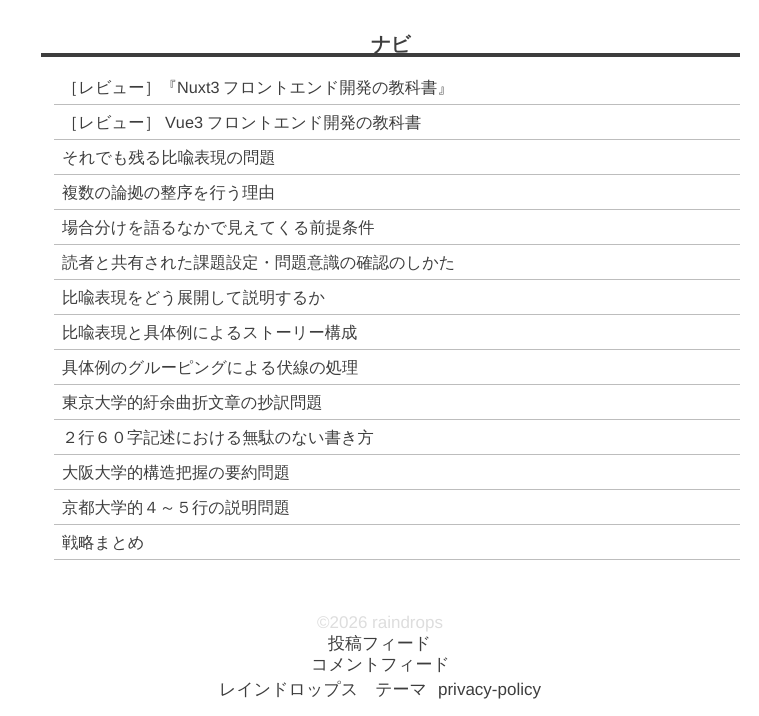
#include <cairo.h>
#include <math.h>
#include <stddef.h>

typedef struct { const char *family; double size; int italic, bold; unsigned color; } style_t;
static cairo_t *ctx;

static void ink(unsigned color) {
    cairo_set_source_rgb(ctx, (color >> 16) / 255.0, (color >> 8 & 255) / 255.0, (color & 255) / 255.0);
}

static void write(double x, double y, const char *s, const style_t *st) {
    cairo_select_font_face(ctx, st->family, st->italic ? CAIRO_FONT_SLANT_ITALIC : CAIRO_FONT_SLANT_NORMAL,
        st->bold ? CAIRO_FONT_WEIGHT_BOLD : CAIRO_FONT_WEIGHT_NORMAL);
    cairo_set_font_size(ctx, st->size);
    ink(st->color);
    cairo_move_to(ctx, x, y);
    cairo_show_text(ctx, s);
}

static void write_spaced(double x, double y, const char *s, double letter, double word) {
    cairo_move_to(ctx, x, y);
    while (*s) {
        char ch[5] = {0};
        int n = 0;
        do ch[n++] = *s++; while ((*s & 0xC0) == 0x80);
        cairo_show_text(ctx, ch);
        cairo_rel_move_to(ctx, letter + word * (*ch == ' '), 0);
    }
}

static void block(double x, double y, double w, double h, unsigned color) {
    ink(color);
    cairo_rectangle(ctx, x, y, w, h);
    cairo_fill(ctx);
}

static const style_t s1 = {"WenQuanYi Zen Hei Medium", 16.25, 0, 0, 0x3d3d3d};
static const style_t s2 = {"Liberation Sans", 16.25, 0, 0, 0x3d3d3d};
static const style_t s3 = {"Liberation Sans", 17, 0, 0, 0xdddddd};
static const style_t s4 = {"WenQuanYi Zen Hei Medium", 17, 0, 0, 0x3d3d3d};
static const style_t s5 = {"Liberation Sans", 17, 0, 0, 0x3d3d3d};

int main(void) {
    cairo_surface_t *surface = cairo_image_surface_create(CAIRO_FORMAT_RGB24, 759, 716);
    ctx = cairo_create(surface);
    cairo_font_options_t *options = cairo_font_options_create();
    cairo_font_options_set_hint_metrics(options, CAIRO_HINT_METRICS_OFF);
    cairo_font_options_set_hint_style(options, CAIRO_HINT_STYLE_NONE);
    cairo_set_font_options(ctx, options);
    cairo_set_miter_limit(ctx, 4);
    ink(0xffffff);
    cairo_paint(ctx);
    block(41, 53, 699, 4, 0x3d3d3d);
    cairo_select_font_face(ctx, "WenQuanYi Zen Hei", CAIRO_FONT_SLANT_NORMAL, CAIRO_FONT_WEIGHT_BOLD);
    cairo_set_font_size(ctx, 20);
    write_spaced(371, 51, "ナビ", -1, 0);
    block(54, 104, 686, 1, 0xbdbdbd);
    write(62, 93, "［レビュー］『", &s1);
    write(177, 93, "Nuxt3", &s2);
    write(223, 93, "フロントエンド開発の教科書』", &s1);
    block(54, 139, 686, 1, 0xbdbdbd);
    write(62, 128, "［レビュー］", &s1);
    write(165, 128, "Vue3", &s2);
    write(207, 128, "フロントエンド開発の教科書", &s1);
    block(54, 174, 686, 1, 0xbdbdbd);
    write(62, 163, "それでも残る比喩表現の問題", &s1);
    block(54, 209, 686, 1, 0xbdbdbd);
    write(62, 198, "複数の論拠の整序を行う理由", &s1);
    block(54, 244, 686, 1, 0xbdbdbd);
    write(62, 233, "場合分けを語るなかで見えてくる前提条件", &s1);
    block(54, 279, 686, 1, 0xbdbdbd);
    write(62, 268, "読者と共有された課題設定・問題意識の確認のしかた", &s1);
    block(54, 314, 686, 1, 0xbdbdbd);
    write(62, 303, "比喩表現をどう展開して説明するか", &s1);
    block(54, 349, 686, 1, 0xbdbdbd);
    write(62, 338, "比喩表現と具体例によるストーリー構成", &s1);
    block(54, 384, 686, 1, 0xbdbdbd);
    write(62, 373, "具体例のグルーピングによる伏線の処理", &s1);
    block(54, 419, 686, 1, 0xbdbdbd);
    write(62, 408, "東京大学的紆余曲折文章の抄訳問題", &s1);
    block(54, 454, 686, 1, 0xbdbdbd);
    write(62, 443, "２行６０字記述における無駄のない書き方", &s1);
    block(54, 489, 686, 1, 0xbdbdbd);
    write(62, 478, "大阪大学的構造把握の要約問題", &s1);
    block(54, 524, 686, 1, 0xbdbdbd);
    write(62, 513, "京都大学的４～５行の説明問題", &s1);
    block(54, 559, 686, 1, 0xbdbdbd);
    write(62, 548, "戦略まとめ", &s1);
    write(317, 628, "©2026 raindrops", &s3);
    write(328, 649, "投稿フィード", &s4);
    write(311, 670, "コメントフィード", &s4);
    write(219, 695, "レインドロップス　テーマ", &s4);
    write(438, 695, "privacy-policy", &s5);
    cairo_surface_write_to_png(surface, "screenshot.png");
    cairo_font_options_destroy(options);
    cairo_destroy(ctx);
    cairo_surface_destroy(surface);
    return 0;
}
